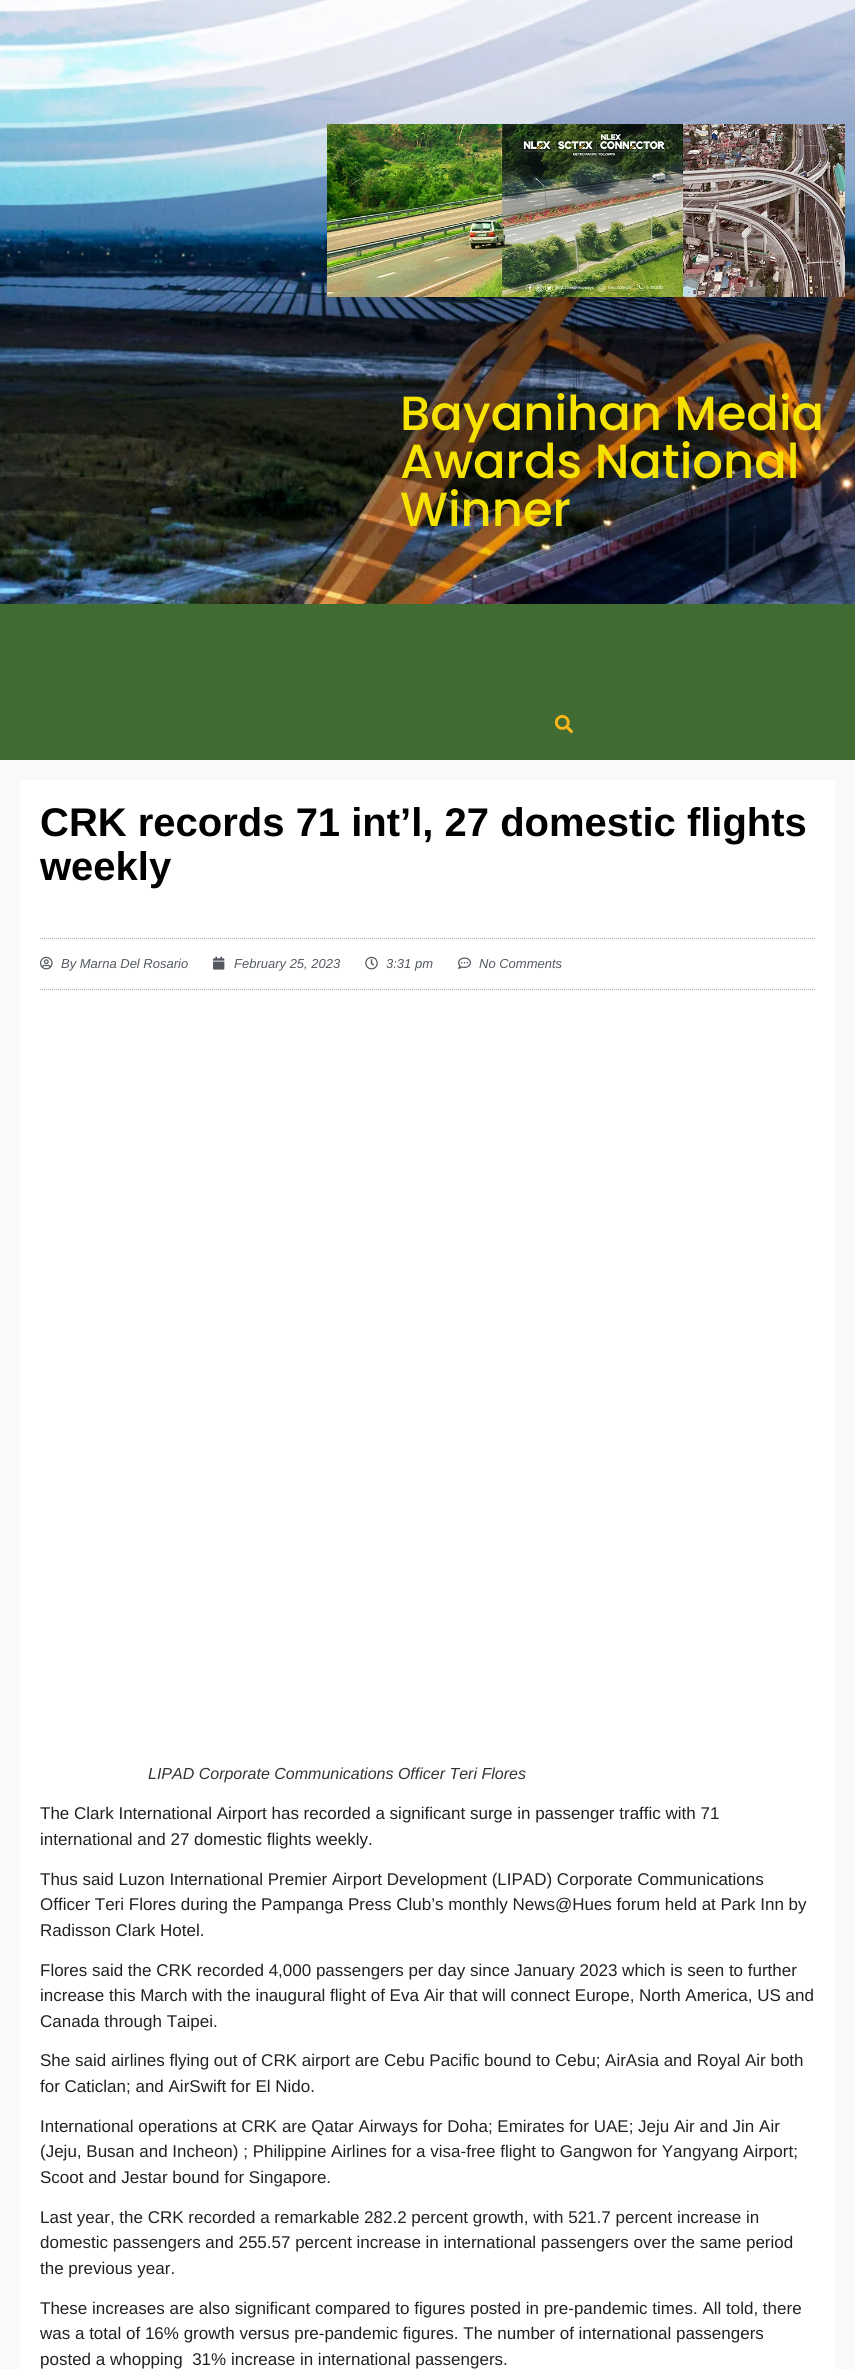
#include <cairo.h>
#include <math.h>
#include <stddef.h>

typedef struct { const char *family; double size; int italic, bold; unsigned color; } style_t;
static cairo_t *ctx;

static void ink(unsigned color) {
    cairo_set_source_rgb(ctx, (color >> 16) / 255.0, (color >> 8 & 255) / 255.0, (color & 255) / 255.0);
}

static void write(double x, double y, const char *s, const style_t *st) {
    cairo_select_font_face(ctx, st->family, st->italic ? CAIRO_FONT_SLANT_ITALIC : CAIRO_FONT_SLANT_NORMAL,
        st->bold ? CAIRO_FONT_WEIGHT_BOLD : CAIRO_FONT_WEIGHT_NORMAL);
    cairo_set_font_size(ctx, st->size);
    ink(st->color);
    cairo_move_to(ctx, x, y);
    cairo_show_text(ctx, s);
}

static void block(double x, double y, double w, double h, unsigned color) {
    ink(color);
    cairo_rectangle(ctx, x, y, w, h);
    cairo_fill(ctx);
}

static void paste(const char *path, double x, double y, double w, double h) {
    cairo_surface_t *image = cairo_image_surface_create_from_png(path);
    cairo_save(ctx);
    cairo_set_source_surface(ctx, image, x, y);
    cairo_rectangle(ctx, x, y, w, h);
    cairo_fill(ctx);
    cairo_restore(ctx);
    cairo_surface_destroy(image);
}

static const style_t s1 = {"Poppins Medium", 48, 0, 0, 0xf6e300};
static const style_t s2 = {"Liberation Sans", 40, 0, 1, 0x000000};
static const style_t s3 = {"Liberation Sans", 13, 1, 0, 0x54595f};
static const style_t s4 = {"Liberation Sans", 16, 1, 0, 0x333333};
static const style_t s5 = {"Liberation Sans", 17, 0, 0, 0x222222};

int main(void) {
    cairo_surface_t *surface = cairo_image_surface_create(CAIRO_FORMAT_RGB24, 855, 2369);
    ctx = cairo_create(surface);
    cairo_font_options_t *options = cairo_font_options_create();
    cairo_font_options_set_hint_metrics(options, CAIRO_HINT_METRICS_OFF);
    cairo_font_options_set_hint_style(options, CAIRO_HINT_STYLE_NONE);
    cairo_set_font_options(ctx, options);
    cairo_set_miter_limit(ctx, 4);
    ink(0xffffff);
    cairo_paint(ctx);
    paste("pic1.png", 0, 0, 855, 604);
    paste("pic2.png", 327, 124, 518, 173);
    write(400, 430, "Bayanihan Media", &s1);
    write(400, 478, "Awards National", &s1);
    write(400, 526, "Winner", &s1);
    block(0, 604, 855, 156, 0x406c33);
    paste("pic3.png", 554, 715, 19, 19);
    block(0, 760, 855, 1609, 0xf8f9fa);
    block(20, 780, 815, 1589, 0xffffff);
    write(40, 836, "CRK records 71 int’l, 27 domestic flights", &s2);
    write(40, 880, "weekly", &s2);
    cairo_new_path(ctx);
    cairo_move_to(ctx, 40, 938.5);
    cairo_line_to(ctx, 815, 938.5);
    ink(0xafafaf);
    cairo_set_line_width(ctx, 1);
    cairo_set_dash(ctx, (double[]){1, 1}, 2, 0);
    cairo_stroke(ctx);
    cairo_new_path(ctx);
    cairo_move_to(ctx, 40, 989.5);
    cairo_line_to(ctx, 815, 989.5);
    cairo_stroke(ctx);
    paste("pic4.png", 40, 956, 13, 14);
    write(61, 968, "By Marna Del Rosario", &s3);
    paste("pic5.png", 213, 956, 12, 14);
    write(234, 968, "February 25, 2023", &s3);
    paste("pic6.png", 365, 956, 13, 14);
    write(386, 968, "3:31 pm", &s3);
    paste("pic7.png", 458, 957, 13, 12);
    write(479, 968, "No Comments", &s3);
    write(148, 1779, "LIPAD Corporate Communications Officer Teri Flores", &s4);
    write(40, 1819, "The Clark International Airport has recorded a significant surge in passenger traffic with 71", &s5);
    write(40, 1845, "international and 27 domestic flights weekly.", &s5);
    write(40, 1885, "Thus said Luzon International Premier Airport Development (LIPAD) Corporate Communications", &s5);
    write(40, 1910, "Officer Teri Flores during the Pampanga Press Club’s monthly News@Hues forum held at Park Inn by", &s5);
    write(40, 1936, "Radisson Clark Hotel.", &s5);
    write(40, 1976, "Flores said the CRK recorded 4,000 passengers per day since January 2023 which is seen to further", &s5);
    write(40, 2001, "increase this March with the inaugural flight of Eva Air that will connect Europe, North America, US and", &s5);
    write(40, 2027, "Canada through Taipei.", &s5);
    write(40, 2066, "She said airlines flying out of CRK airport are Cebu Pacific bound to Cebu; AirAsia and Royal Air both", &s5);
    write(40, 2092, "for Caticlan; and AirSwift for El Nido.", &s5);
    write(40, 2132, "International operations at CRK are Qatar Airways for Doha; Emirates for UAE; Jeju Air and Jin Air", &s5);
    write(40, 2157, "(Jeju, Busan and Incheon) ; Philippine Airlines for a visa-free flight to Gangwon for Yangyang Airport;", &s5);
    write(40, 2183, "Scoot and Jestar bound for Singapore.", &s5);
    write(40, 2223, "Last year, the CRK recorded a remarkable 282.2 percent growth, with 521.7 percent increase in", &s5);
    write(40, 2248, "domestic passengers and 255.57 percent increase in international passengers over the same period", &s5);
    write(40, 2274, "the previous year.", &s5);
    write(40, 2314, "These increases are also significant compared to figures posted in pre-pandemic times. All told, there", &s5);
    write(40, 2339, "was a total of 16% growth versus pre-pandemic figures. The number of international passengers", &s5);
    write(40, 2365, "posted a whopping  31% increase in international passengers.", &s5);
    cairo_surface_write_to_png(surface, "screenshot.png");
    cairo_font_options_destroy(options);
    cairo_destroy(ctx);
    cairo_surface_destroy(surface);
    return 0;
}
